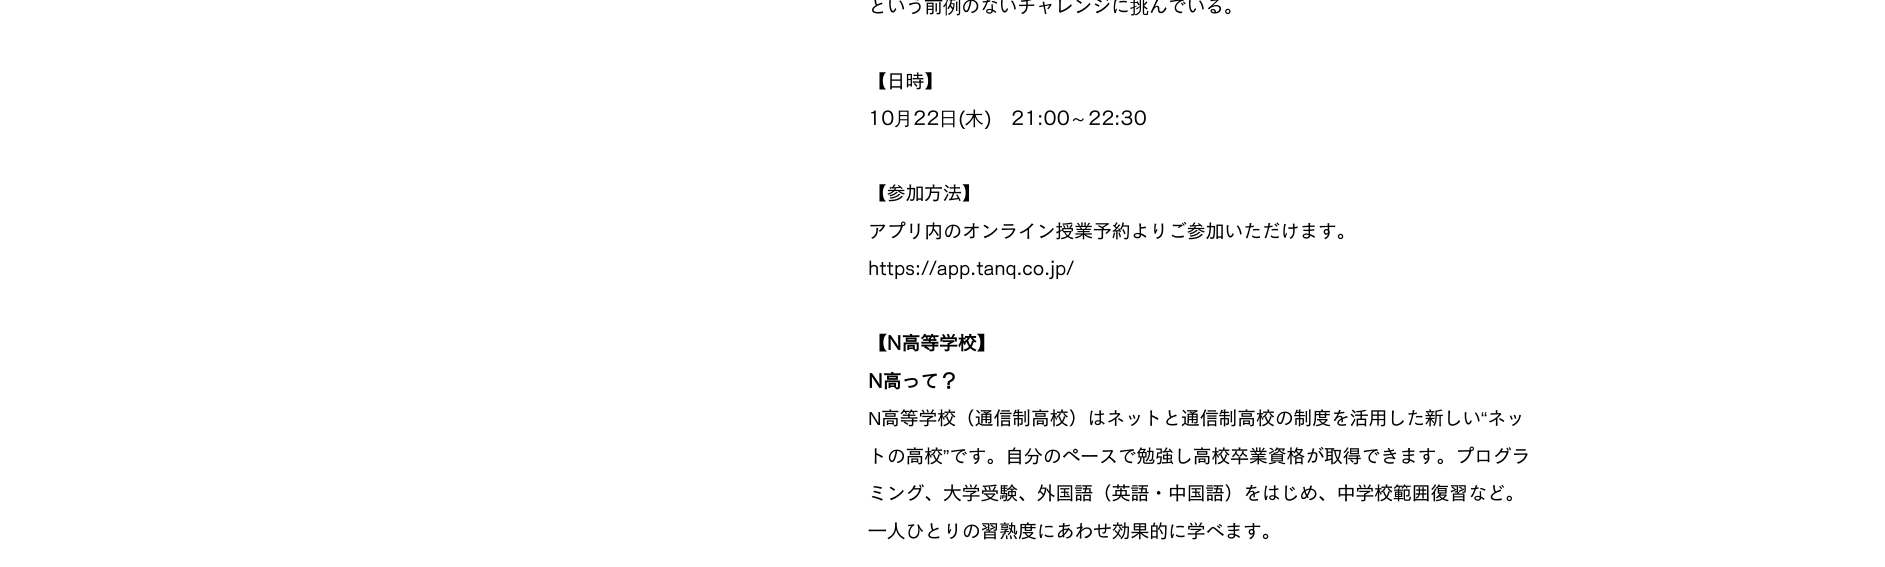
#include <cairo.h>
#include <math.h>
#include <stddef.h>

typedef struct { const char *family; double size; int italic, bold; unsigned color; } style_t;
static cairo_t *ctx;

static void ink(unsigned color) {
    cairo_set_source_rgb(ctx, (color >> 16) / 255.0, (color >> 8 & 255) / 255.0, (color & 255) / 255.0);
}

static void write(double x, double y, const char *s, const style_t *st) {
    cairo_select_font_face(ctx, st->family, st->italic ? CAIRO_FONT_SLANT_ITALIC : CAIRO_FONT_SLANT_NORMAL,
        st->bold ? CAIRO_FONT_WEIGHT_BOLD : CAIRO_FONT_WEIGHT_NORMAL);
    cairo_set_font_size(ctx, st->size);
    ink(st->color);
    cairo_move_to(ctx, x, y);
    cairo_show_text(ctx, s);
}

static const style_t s1 = {"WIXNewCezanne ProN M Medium", 18.75, 0, 0, 0x000000};
static const style_t s2 = {"WenQuanYi Zen Hei Medium", 18.75, 0, 0, 0x000000};
static const style_t s3 = {"WIXNewCezanne ProN M", 18.75, 0, 1, 0x000000};
static const style_t s4 = {"Liberation Sans", 18.75, 0, 0, 0x000000};

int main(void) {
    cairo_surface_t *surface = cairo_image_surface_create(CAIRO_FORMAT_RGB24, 1885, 567);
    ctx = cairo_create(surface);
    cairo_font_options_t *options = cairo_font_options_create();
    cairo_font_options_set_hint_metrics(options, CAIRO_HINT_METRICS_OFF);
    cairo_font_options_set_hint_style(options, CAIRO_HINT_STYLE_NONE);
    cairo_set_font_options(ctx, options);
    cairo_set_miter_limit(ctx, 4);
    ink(0xffffff);
    cairo_paint(ctx);
    write(868, 13, "という前", &s1);
    write(943, 13, "例", &s2);
    write(961, 13, "のないチャレンジに", &s1);
    write(1130, 13, "挑", &s2);
    write(1149, 13, "んでいる。", &s1);
    write(868, 88, "【日時】", &s1);
    write(868, 125, "10", &s1);
    write(894, 125, "月", &s2);
    write(913, 125, "22", &s1);
    write(939, 125, "日", &s2);
    write(958, 125, "(", &s1);
    write(965, 125, "木", &s2);
    write(984, 125, ")", &s1);
    write(1011, 125, "21:00", &s1);
    write(1069, 125, "～", &s2);
    write(1088, 125, "22:30", &s1);
    write(868, 200, "【参加方法】", &s1);
    write(868, 238, "アプリ内のオンライン授業予約よりご参加いただけます。", &s1);
    write(868, 275, "https://app.tanq.co.jp/", &s1);
    write(868, 350, "【N高等学校】", &s3);
    write(868, 388, "N高って？", &s3);
    write(868, 425, "N", &s4);
    write(881, 425, "高等学校（通信制高校）はネットと通信制高校の制度を活用した新しい", &s1);
    write(1481, 425, "“", &s4);
    write(1487, 425, "ネッ", &s1);
    write(868, 463, "トの高校", &s1);
    write(943, 463, "”", &s4);
    write(949, 463, "です。自分のペースで勉強し高校卒業資格が取得できます。プログラ", &s1);
    write(868, 500, "ミング、大学受験、外国語（英語・中国語）をはじめ、中学校範囲復習など。", &s1);
    write(868, 538, "一人ひとりの習熟度にあわせ効果的に学べます。", &s1);
    cairo_surface_write_to_png(surface, "screenshot.png");
    cairo_font_options_destroy(options);
    cairo_destroy(ctx);
    cairo_surface_destroy(surface);
    return 0;
}
